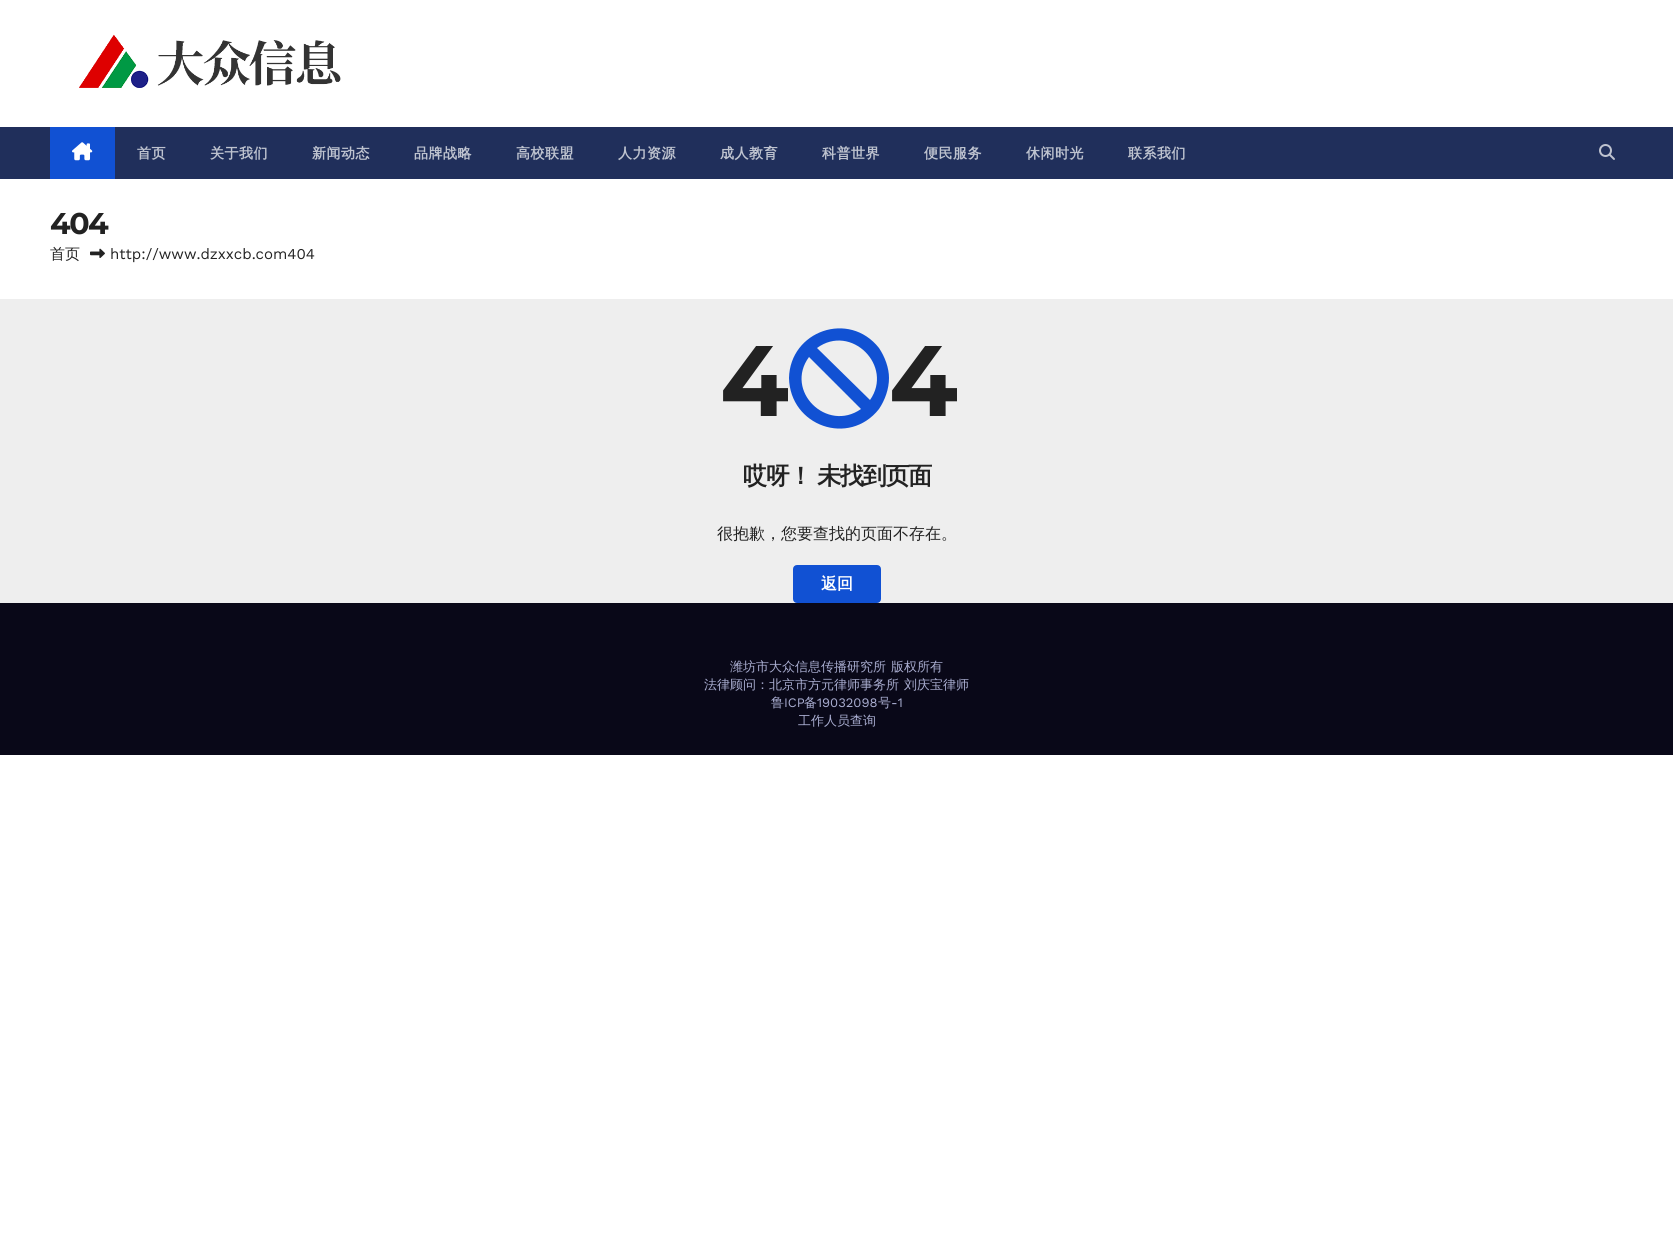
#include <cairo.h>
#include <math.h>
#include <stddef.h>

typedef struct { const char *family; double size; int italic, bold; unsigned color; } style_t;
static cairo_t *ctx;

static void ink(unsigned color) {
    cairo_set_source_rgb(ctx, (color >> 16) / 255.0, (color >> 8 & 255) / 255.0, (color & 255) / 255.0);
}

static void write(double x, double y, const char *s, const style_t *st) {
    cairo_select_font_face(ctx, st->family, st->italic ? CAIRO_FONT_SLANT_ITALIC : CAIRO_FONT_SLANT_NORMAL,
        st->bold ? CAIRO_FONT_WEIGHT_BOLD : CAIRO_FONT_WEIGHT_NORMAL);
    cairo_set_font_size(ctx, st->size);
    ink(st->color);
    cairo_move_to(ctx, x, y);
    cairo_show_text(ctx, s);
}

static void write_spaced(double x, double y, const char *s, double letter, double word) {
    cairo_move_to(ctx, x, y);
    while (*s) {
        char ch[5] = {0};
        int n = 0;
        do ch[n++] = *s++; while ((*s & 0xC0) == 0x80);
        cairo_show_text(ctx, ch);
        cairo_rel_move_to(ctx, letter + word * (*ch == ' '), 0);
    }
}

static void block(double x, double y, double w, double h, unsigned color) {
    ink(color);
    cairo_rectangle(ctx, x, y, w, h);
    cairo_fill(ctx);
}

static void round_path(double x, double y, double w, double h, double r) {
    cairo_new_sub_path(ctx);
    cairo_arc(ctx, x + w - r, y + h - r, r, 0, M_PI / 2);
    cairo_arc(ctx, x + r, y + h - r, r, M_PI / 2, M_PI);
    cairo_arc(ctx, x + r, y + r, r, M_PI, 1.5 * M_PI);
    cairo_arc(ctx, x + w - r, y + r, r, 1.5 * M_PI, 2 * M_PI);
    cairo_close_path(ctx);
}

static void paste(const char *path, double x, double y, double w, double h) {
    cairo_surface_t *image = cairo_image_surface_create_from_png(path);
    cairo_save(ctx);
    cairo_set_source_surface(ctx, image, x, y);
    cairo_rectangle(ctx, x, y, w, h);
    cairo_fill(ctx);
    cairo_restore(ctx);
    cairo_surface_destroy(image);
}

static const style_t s1 = {"WenQuanYi Zen Hei Medium", 15, 0, 0, 0x222222};
static const style_t s2 = {"Work Sans", 15, 0, 0, 0x222222};
static const style_t s3 = {"WenQuanYi Zen Hei Medium", 16, 0, 0, 0x222222};
static const style_t s4 = {"WenQuanYi Zen Hei", 16, 0, 1, 0xffffff};
static const style_t s5 = {"WenQuanYi Zen Hei Medium", 13, 0, 0, 0xaaaed1};
static const style_t s6 = {"Work Sans", 13, 0, 0, 0xaaaed1};

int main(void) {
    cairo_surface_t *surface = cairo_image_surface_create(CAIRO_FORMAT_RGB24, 1673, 1248);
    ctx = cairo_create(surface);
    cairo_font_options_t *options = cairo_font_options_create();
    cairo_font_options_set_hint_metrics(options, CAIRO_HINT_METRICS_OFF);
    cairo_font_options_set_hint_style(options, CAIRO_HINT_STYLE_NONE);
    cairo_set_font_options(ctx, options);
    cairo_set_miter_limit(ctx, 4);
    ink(0xffffff);
    cairo_paint(ctx);
    block(0, 299, 1673, 304, 0xeeeeee);
    paste("pic1.png", 79, 34, 262, 54);
    block(0, 127, 1673, 52, 0x202f5b);
    block(50, 127, 65, 52, 0x1151d3);
    paste("pic2.png", 72, 142, 21, 19);
    cairo_select_font_face(ctx, "WenQuanYi Zen Hei", CAIRO_FONT_SLANT_NORMAL, CAIRO_FONT_WEIGHT_BOLD);
    cairo_set_font_size(ctx, 14);
    ink(0xbec3cf);
    write_spaced(137, 158, "首页", 0.5, 0);
    write_spaced(210, 158, "关于我们", 0.5, 0);
    write_spaced(312, 158, "新闻动态", 0.5, 0);
    write_spaced(414, 158, "品牌战略", 0.5, 0);
    write_spaced(516, 158, "高校联盟", 0.5, 0);
    write_spaced(618, 158, "人力资源", 0.5, 0);
    write_spaced(720, 158, "成人教育", 0.5, 0);
    write_spaced(822, 158, "科普世界", 0.5, 0);
    write_spaced(924, 158, "便民服务", 0.5, 0);
    write_spaced(1026, 158, "休闲时光", 0.5, 0);
    write_spaced(1128, 158, "联系我们", 0.5, 0);
    paste("pic3.png", 1599, 144, 16, 16);
    cairo_select_font_face(ctx, "Montserrat", CAIRO_FONT_SLANT_NORMAL, CAIRO_FONT_WEIGHT_BOLD);
    cairo_set_font_size(ctx, 30);
    ink(0x222222);
    write_spaced(50, 234, "404", -1.5, 0);
    write(50, 259, "首页", &s1);
    paste("pic4.png", 90, 248, 15, 10);
    write(110, 259, "http://www.dzxxcb.com404", &s2);
    cairo_select_font_face(ctx, "Montserrat", CAIRO_FONT_SLANT_NORMAL, CAIRO_FONT_WEIGHT_BOLD);
    cairo_set_font_size(ctx, 100);
    write_spaced(720, 416, "4", -5, 0);
    ink(0x1151d3);
    cairo_new_path(ctx);
    cairo_move_to(ctx, 861, 409);
    cairo_line_to(ctx, 809, 357);
    cairo_curve_to(ctx, 784, 391, 827, 433, 861, 409);
    cairo_close_path(ctx);
    cairo_move_to(ctx, 870, 400);
    cairo_curve_to(ctx, 894, 366, 851, 323, 817, 348);
    cairo_close_path(ctx);
    cairo_move_to(ctx, 789, 378);
    cairo_curve_to(ctx, 790, 331, 849, 310, 879, 348);
    cairo_curve_to(ctx, 885, 357, 889, 368, 889, 378);
    cairo_curve_to(ctx, 889, 389, 885, 400, 879, 409);
    cairo_curve_to(ctx, 849, 447, 790, 426, 789, 378);
    cairo_close_path(ctx);
    cairo_fill(ctx);
    ink(0x222222);
    write_spaced(889, 416, "4", -5, 0);
    cairo_select_font_face(ctx, "WenQuanYi Zen Hei", CAIRO_FONT_SLANT_NORMAL, CAIRO_FONT_WEIGHT_BOLD);
    cairo_set_font_size(ctx, 24);
    write_spaced(743, 484, "哎呀！ 未找到页面", -1.25, 0);
    write(717, 539, "很抱歉，您要查找的页面不存在。", &s3);
    ink(0x1151d3);
    round_path(794, 566, 86, 36, 3);
    cairo_fill_preserve(ctx);
    cairo_stroke(ctx);
    write(821, 589, "返回", &s4);
    block(0, 603, 1673, 152, 0x090818);
    write(730, 671, "潍坊市大众信息传播研究所", &s5);
    write(891, 671, "版权所有", &s5);
    write(704, 689, "法律顾问：北京市方元律师事务所", &s5);
    write(904, 689, "刘庆宝律师", &s5);
    write(771, 707, "鲁", &s5);
    write(784, 707, "ICP", &s6);
    write(804, 707, "备", &s5);
    write(817, 707, "19032098", &s6);
    write(878, 707, "号", &s5);
    write(891, 707, "-1", &s6);
    write(798, 725, "工作人员查询", &s5);
    cairo_surface_write_to_png(surface, "screenshot.png");
    cairo_font_options_destroy(options);
    cairo_destroy(ctx);
    cairo_surface_destroy(surface);
    return 0;
}
